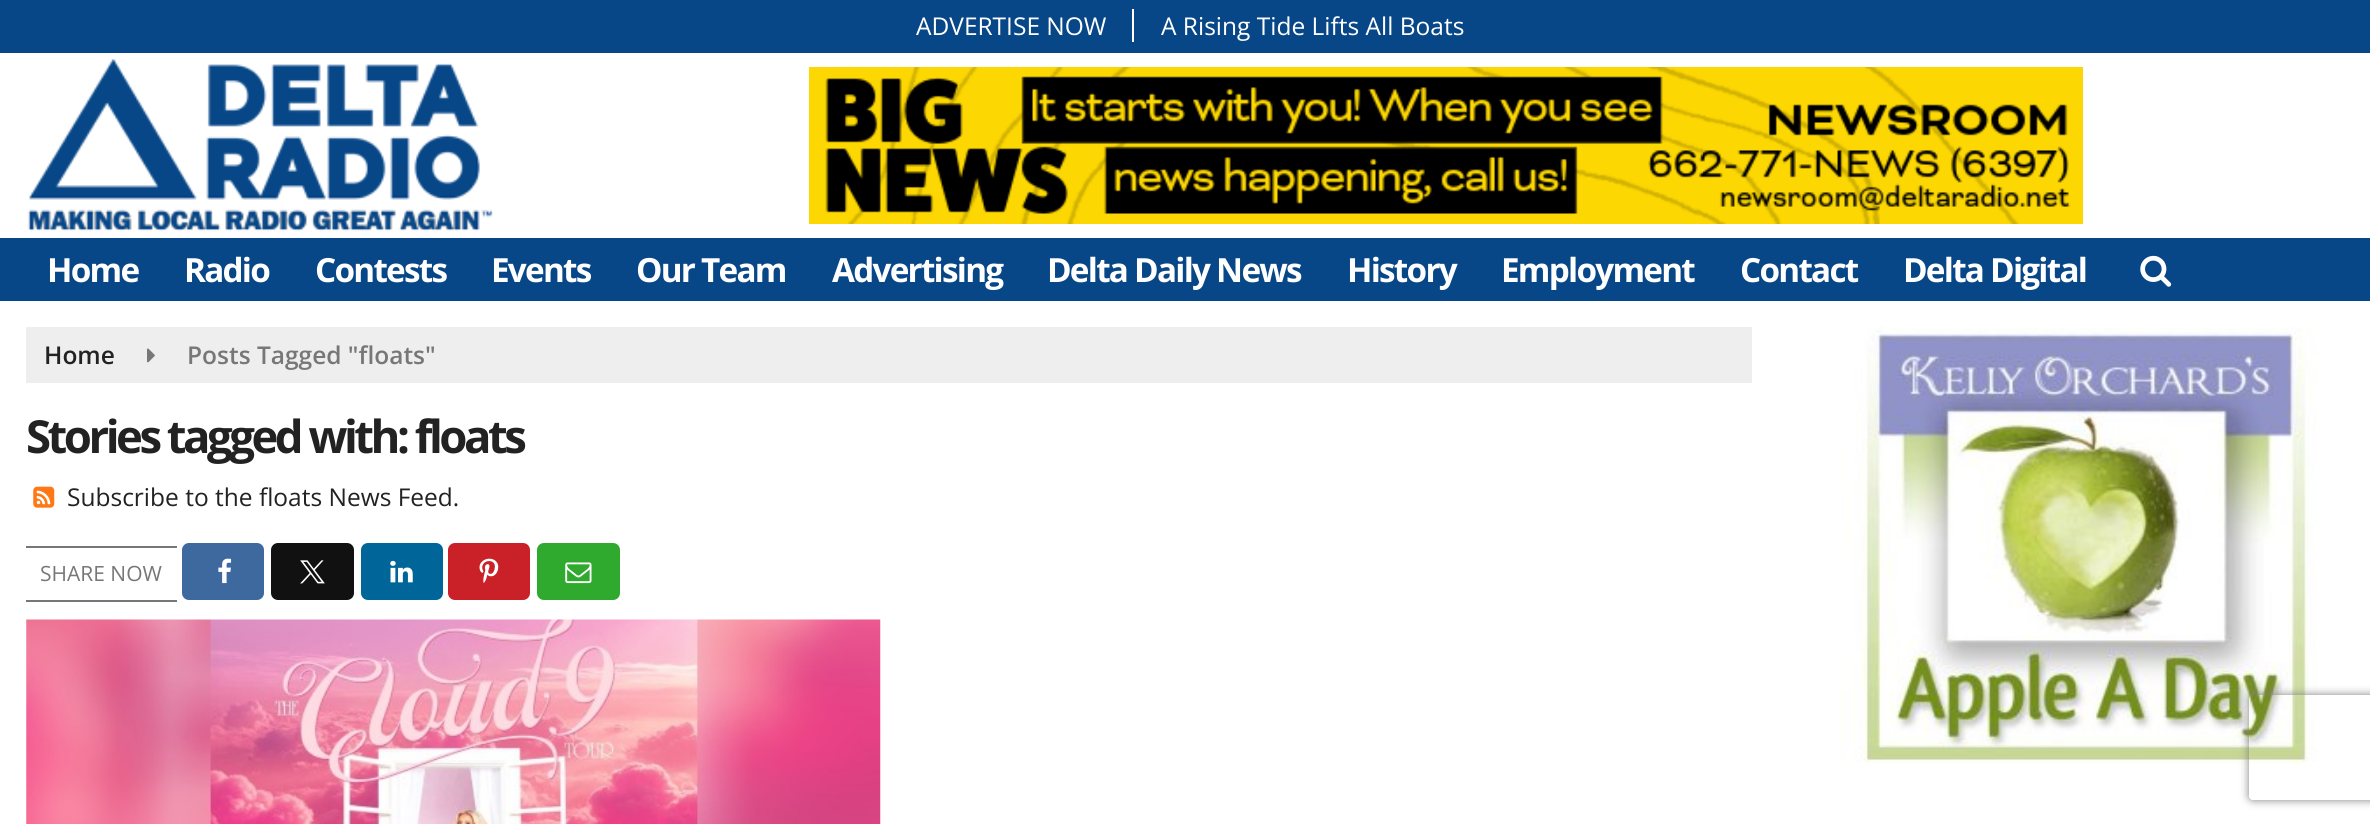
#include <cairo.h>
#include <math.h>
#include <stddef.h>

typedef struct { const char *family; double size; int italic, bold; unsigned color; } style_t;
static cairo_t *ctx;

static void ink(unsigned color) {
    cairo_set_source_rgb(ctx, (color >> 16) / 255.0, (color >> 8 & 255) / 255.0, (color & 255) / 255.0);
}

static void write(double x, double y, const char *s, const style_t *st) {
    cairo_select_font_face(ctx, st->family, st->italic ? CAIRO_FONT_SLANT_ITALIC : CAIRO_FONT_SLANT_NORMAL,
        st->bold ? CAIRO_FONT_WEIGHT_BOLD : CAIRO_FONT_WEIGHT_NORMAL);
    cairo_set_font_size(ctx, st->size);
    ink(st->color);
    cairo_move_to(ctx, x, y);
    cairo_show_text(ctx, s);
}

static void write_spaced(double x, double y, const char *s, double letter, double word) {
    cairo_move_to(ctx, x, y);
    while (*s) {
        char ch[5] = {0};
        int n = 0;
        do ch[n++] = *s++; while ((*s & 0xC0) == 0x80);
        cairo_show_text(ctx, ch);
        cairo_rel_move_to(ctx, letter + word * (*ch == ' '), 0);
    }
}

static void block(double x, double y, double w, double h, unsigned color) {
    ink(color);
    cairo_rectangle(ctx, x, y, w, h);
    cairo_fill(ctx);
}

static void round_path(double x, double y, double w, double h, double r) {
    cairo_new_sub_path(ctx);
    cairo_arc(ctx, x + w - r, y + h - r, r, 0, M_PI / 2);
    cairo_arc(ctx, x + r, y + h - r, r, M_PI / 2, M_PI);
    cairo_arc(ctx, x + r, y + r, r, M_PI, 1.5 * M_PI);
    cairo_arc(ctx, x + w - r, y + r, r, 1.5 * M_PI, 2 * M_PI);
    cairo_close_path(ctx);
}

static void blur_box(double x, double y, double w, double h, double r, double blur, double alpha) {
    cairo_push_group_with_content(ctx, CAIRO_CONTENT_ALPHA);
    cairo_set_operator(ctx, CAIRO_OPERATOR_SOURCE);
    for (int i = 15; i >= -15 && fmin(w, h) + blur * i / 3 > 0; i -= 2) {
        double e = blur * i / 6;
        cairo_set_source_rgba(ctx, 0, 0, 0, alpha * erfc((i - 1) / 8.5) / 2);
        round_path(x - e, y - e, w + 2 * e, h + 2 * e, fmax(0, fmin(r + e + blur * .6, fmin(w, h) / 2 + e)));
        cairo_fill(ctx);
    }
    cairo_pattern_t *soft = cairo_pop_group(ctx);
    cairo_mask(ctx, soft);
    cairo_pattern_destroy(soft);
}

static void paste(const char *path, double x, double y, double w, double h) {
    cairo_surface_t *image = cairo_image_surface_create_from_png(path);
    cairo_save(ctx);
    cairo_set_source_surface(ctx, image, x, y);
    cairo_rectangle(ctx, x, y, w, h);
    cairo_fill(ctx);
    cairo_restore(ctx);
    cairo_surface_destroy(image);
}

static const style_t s1 = {"Open Sans", 24.5, 0, 0, 0xffffff};
static const style_t s2 = {"Open Sans SemiBold", 24.5, 0, 0, 0x222222};
static const style_t s3 = {"Open Sans SemiBold", 24.5, 0, 0, 0x777777};
static const style_t s4 = {"Open Sans", 24.5, 0, 0, 0x222222};
static const style_t s5 = {"Open Sans", 21, 0, 0, 0x777777};

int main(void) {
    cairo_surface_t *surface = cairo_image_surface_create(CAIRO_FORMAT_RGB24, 2370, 824);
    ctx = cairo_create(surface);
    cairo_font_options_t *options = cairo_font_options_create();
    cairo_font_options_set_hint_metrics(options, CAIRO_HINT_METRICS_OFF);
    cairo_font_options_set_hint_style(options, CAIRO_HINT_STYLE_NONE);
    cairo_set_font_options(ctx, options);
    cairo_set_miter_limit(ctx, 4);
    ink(0xffffff);
    cairo_paint(ctx);
    block(0, 0, 2370, 53, 0x084787);
    write(916, 35, "ADVERTISE NOW", &s1);
    block(1132, 9, 2, 33, 0xffffff);
    write(1161, 35, "A Rising Tide Lifts All Boats", &s1);
    paste("pic1.png", 27, 59, 466, 173);
    paste("pic2.png", 809, 67, 1274, 157);
    block(0, 238, 2370, 63, 0x084787);
    cairo_select_font_face(ctx, "Open Sans", CAIRO_FONT_SLANT_NORMAL, CAIRO_FONT_WEIGHT_BOLD);
    cairo_set_font_size(ctx, 33.25);
    ink(0xffffff);
    write_spaced(47, 282, "Home", -1.75, 0);
    write_spaced(184, 282, "Radio", -1.75, 0);
    write_spaced(315, 282, "Contests", -1.75, 0);
    write_spaced(491, 282, "Events", -1.75, 0);
    write_spaced(636, 282, "Our Team", -1.75, 0);
    write_spaced(832, 282, "Advertising", -1.75, 0);
    write_spaced(1047, 282, "Delta Daily News", -1.75, 0);
    write_spaced(1347, 282, "History", -1.75, 0);
    write_spaced(1501, 282, "Employment", -1.75, 0);
    write_spaced(1740, 282, "Contact", -1.75, 0);
    write_spaced(1903, 282, "Delta Digital", -1.75, 0);
    paste("pic3.png", 2140, 255, 32, 32);
    block(26, 327, 1726, 56, 0xeeeeee);
    write(44, 364, "Home", &s2);
    paste("pic4.png", 147, 348, 8, 15);
    write(187, 364, "Posts Tagged \"floats\"", &s3);
    cairo_select_font_face(ctx, "Open Sans", CAIRO_FONT_SLANT_NORMAL, CAIRO_FONT_WEIGHT_BOLD);
    cairo_set_font_size(ctx, 45.5);
    ink(0x222222);
    write_spaced(26, 453, "Stories tagged with: floats", -3.5, 0);
    paste("pic5.png", 33, 486, 22, 22);
    write(67, 506, "Subscribe to the floats News Feed.", &s4);
    block(26, 546, 151, 2, 0x777777);
    block(26, 600, 151, 2, 0x777777);
    write(40, 581, "SHARE NOW", &s5);
    ink(0x3d699e);
    round_path(182, 543, 82, 57, 7);
    cairo_fill(ctx);
    paste("pic6.png", 218, 558, 14, 26);
    ink(0x111111);
    round_path(271, 543, 83, 57, 7);
    cairo_fill(ctx);
    paste("pic7.png", 300, 560, 25, 24);
    ink(0x006699);
    round_path(361, 543, 82, 57, 7);
    cairo_fill(ctx);
    paste("pic8.png", 390, 560, 23, 23);
    ink(0xca2027);
    round_path(448, 543, 82, 57, 7);
    cairo_fill(ctx);
    paste("pic9.png", 479, 558, 20, 25);
    ink(0x2fa92e);
    round_path(537, 543, 83, 57, 7);
    cairo_fill(ctx);
    paste("pic10.png", 565, 562, 27, 22);
    paste("pic11.png", 26, 619, 855, 205);
    paste("pic12.png", 1841, 327, 476, 438);
    cairo_save(ctx);
    cairo_set_fill_rule(ctx, CAIRO_FILL_RULE_EVEN_ODD);
    cairo_new_path(ctx);
    cairo_move_to(ctx, 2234, 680);
    cairo_line_to(ctx, 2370, 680);
    cairo_line_to(ctx, 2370, 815);
    cairo_line_to(ctx, 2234, 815);
    cairo_close_path(ctx);
    cairo_move_to(ctx, 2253, 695);
    cairo_line_to(ctx, 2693, 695);
    cairo_curve_to(ctx, 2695, 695, 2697, 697, 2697, 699);
    cairo_line_to(ctx, 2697, 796);
    cairo_curve_to(ctx, 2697, 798, 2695, 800, 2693, 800);
    cairo_line_to(ctx, 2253, 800);
    cairo_curve_to(ctx, 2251, 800, 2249, 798, 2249, 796);
    cairo_line_to(ctx, 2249, 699);
    cairo_curve_to(ctx, 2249, 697, 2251, 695, 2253, 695);
    cairo_close_path(ctx);
    cairo_clip(ctx);
    ink(0x808080);
    blur_box(2249, 695, 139, 105, 4, 4.5, 1);
    cairo_restore(ctx);
    cairo_surface_write_to_png(surface, "screenshot.png");
    cairo_font_options_destroy(options);
    cairo_destroy(ctx);
    cairo_surface_destroy(surface);
    return 0;
}
